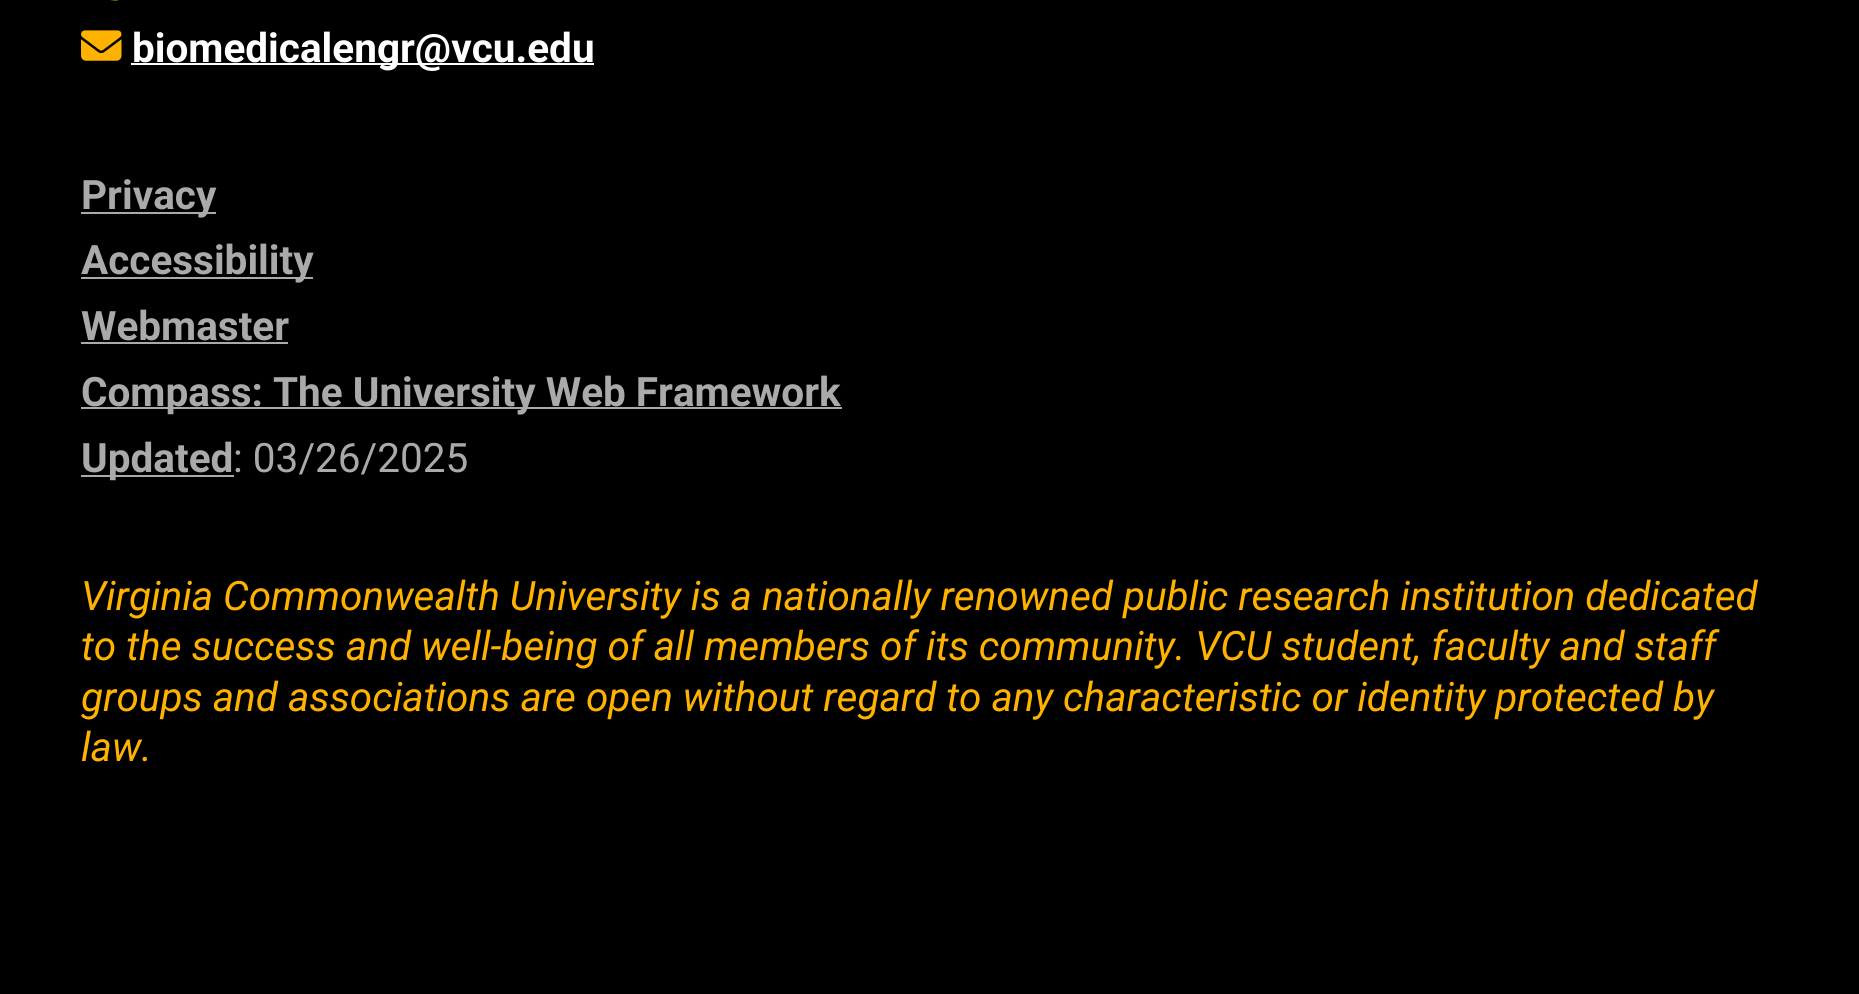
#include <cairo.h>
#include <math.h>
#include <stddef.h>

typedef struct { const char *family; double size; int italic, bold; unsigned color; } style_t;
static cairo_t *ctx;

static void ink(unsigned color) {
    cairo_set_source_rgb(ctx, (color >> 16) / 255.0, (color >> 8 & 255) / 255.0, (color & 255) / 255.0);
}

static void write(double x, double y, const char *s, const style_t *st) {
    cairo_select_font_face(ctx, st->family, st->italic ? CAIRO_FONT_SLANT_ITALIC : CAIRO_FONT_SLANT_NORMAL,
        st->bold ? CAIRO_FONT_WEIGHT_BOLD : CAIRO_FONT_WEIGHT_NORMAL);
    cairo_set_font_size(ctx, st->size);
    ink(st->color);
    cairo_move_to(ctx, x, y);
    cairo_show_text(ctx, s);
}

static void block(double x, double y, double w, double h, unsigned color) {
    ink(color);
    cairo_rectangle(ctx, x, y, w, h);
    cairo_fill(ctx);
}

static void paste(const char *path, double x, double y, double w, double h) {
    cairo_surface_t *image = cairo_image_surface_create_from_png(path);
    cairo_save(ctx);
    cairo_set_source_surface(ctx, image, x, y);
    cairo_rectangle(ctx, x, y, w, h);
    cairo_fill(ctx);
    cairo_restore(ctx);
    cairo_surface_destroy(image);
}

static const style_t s1 = {"Roboto", 40.5, 0, 1, 0xffffff};
static const style_t s2 = {"Roboto", 40.5, 0, 1, 0xaaaaaa};
static const style_t s3 = {"Roboto", 40.5, 0, 0, 0xaaaaaa};
static const style_t s4 = {"Roboto", 40.5, 1, 0, 0xffb300};

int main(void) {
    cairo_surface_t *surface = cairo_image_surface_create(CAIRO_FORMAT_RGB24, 1859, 994);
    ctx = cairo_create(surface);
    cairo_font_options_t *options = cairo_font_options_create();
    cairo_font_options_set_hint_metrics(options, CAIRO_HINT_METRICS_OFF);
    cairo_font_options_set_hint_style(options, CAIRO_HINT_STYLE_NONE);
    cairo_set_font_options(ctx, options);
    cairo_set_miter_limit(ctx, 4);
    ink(0x000000);
    cairo_paint(ctx);
    paste("pic1.png", 110, 0, 8, 1);
    paste("pic2.png", 81, 30, 41, 31);
    block(131, 63, 463, 2, 0xffffff);
    write(132, 62, "biomedicalengr@vcu.edu", &s1);
    block(81, 212, 135, 2, 0xaaaaaa);
    write(81, 209, "Privacy", &s2);
    block(81, 277, 232, 2, 0xaaaaaa);
    write(81, 274, "Accessibility", &s2);
    write(81, 340, "Webmaster", &s2);
    block(81, 342, 207, 2, 0xaaaaaa);
    block(81, 407, 761, 2, 0xaaaaaa);
    write(81, 406, "Compass: The University Web Framework", &s2);
    block(81, 475, 153, 2, 0xaaaaaa);
    write(81, 472, "Updated", &s2);
    write(233, 472, ": 03/26/2025", &s3);
    write(81, 610, "Virginia Commonwealth University is a nationally renowned public research institution dedicated", &s4);
    write(81, 660, "to the success and well-being of all members of its community. VCU student, faculty and staff", &s4);
    write(81, 711, "groups and associations are open without regard to any characteristic or identity protected by", &s4);
    write(81, 761, "law.", &s4);
    cairo_surface_write_to_png(surface, "screenshot.png");
    cairo_font_options_destroy(options);
    cairo_destroy(ctx);
    cairo_surface_destroy(surface);
    return 0;
}
